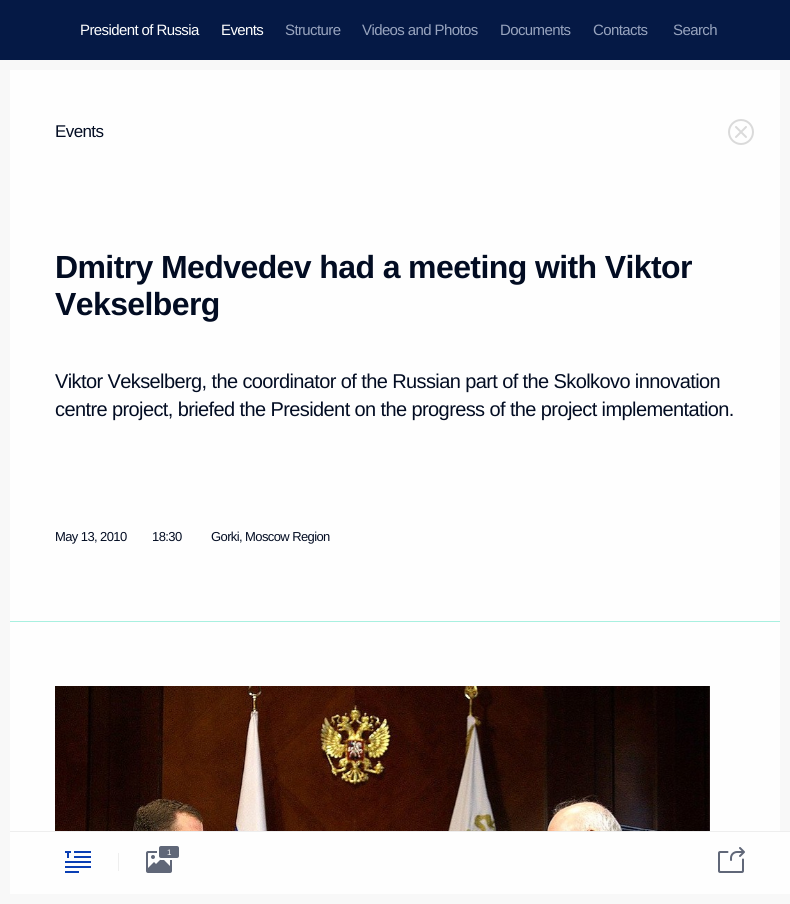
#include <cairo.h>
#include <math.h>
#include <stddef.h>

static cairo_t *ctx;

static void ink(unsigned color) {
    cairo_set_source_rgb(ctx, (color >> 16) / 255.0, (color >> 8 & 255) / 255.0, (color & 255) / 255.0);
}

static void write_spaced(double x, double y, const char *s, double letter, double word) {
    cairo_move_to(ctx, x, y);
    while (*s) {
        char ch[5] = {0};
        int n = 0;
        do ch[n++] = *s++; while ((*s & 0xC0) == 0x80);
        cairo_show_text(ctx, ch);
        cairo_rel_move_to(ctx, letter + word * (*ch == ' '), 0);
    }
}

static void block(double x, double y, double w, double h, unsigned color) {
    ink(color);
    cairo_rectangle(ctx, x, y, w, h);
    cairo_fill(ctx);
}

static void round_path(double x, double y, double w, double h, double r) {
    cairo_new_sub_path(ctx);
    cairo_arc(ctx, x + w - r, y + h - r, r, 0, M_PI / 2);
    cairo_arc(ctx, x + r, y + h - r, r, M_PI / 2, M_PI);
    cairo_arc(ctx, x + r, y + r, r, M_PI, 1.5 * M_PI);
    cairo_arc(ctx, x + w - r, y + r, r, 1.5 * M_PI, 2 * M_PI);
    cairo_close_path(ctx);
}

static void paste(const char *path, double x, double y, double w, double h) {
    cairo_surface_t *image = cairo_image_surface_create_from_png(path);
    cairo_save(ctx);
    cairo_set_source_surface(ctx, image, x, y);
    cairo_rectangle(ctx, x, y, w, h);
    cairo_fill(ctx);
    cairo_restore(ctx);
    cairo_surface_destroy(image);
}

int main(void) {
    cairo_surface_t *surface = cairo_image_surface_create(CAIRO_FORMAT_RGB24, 790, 904);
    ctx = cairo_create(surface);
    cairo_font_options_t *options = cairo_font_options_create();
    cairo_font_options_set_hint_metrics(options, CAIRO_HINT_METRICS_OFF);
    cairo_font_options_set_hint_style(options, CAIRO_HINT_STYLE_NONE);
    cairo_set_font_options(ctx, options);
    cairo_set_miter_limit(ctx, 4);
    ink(0xf8f8f8);
    cairo_paint(ctx);
    block(0, 0, 790, 60, 0x051945);
    cairo_select_font_face(ctx, "Liberation Sans", CAIRO_FONT_SLANT_NORMAL, CAIRO_FONT_WEIGHT_NORMAL);
    cairo_set_font_size(ctx, 15);
    ink(0xfefefe);
    write_spaced(80, 35, "President of Russia", -0.6, 0);
    write_spaced(221, 35, "Events", -0.6, 0);
    ink(0x98a4be);
    write_spaced(285, 35, "Structure", -0.6, 0);
    write_spaced(362, 35, "Videos and Photos", -0.6, 0);
    write_spaced(500, 35, "Documents", -0.6, 0);
    write_spaced(593, 35, "Contacts", -0.6, 0);
    write_spaced(673, 35, "Search", -0.6, 0);
    block(10, 70, 770, 761, 0xfefefe);
    block(10, 621, 770, 1, 0xa8f0e0);
    cairo_set_font_size(ctx, 17);
    ink(0x020c22);
    write_spaced(55, 137, "Events", -0.6, 0);
    cairo_select_font_face(ctx, "Liberation Sans", CAIRO_FONT_SLANT_NORMAL, CAIRO_FONT_WEIGHT_BOLD);
    cairo_set_font_size(ctx, 32);
    write_spaced(55, 278, "Dmitry Medvedev had a meeting with Viktor", -0.6, 0);
    write_spaced(55, 315, "Vekselberg", -0.6, 0);
    cairo_select_font_face(ctx, "Liberation Sans", CAIRO_FONT_SLANT_NORMAL, CAIRO_FONT_WEIGHT_NORMAL);
    cairo_set_font_size(ctx, 20);
    write_spaced(55, 388, "Viktor Vekselberg, the coordinator of the Russian part of the Skolkovo innovation", -0.6, 0);
    write_spaced(55, 416, "centre project, briefed the President on the progress of the project implementation.", -0.6, 0);
    cairo_set_font_size(ctx, 13);
    write_spaced(55, 541, "May 13, 2010", -0.6, 0);
    write_spaced(152, 541, "18:30", -0.6, 0);
    write_spaced(211, 541, "Gorki, Moscow Region", -0.6, 0);
    paste("pic1.png", 55, 686, 655, 145);
    paste("pic2.png", 728, 119, 26, 26);
    block(10, 832, 780, 62, 0xfefefe);
    block(10, 831, 780, 1, 0xeeeeee);
    paste("pic3.png", 65, 851, 26, 22);
    block(118, 853, 1, 18, 0xeeeeee);
    paste("pic4.png", 146, 851, 26, 22);
    ink(0x606778);
    round_path(158, 845, 22, 14, 3);
    cairo_fill_preserve(ctx);
    ink(0xfefefe);
    cairo_stroke(ctx);
    cairo_set_font_size(ctx, 8);
    write_spaced(167, 855, "1", -0.6, 0);
    paste("pic5.png", 718, 847, 27, 26);
    cairo_surface_write_to_png(surface, "screenshot.png");
    cairo_font_options_destroy(options);
    cairo_destroy(ctx);
    cairo_surface_destroy(surface);
    return 0;
}
